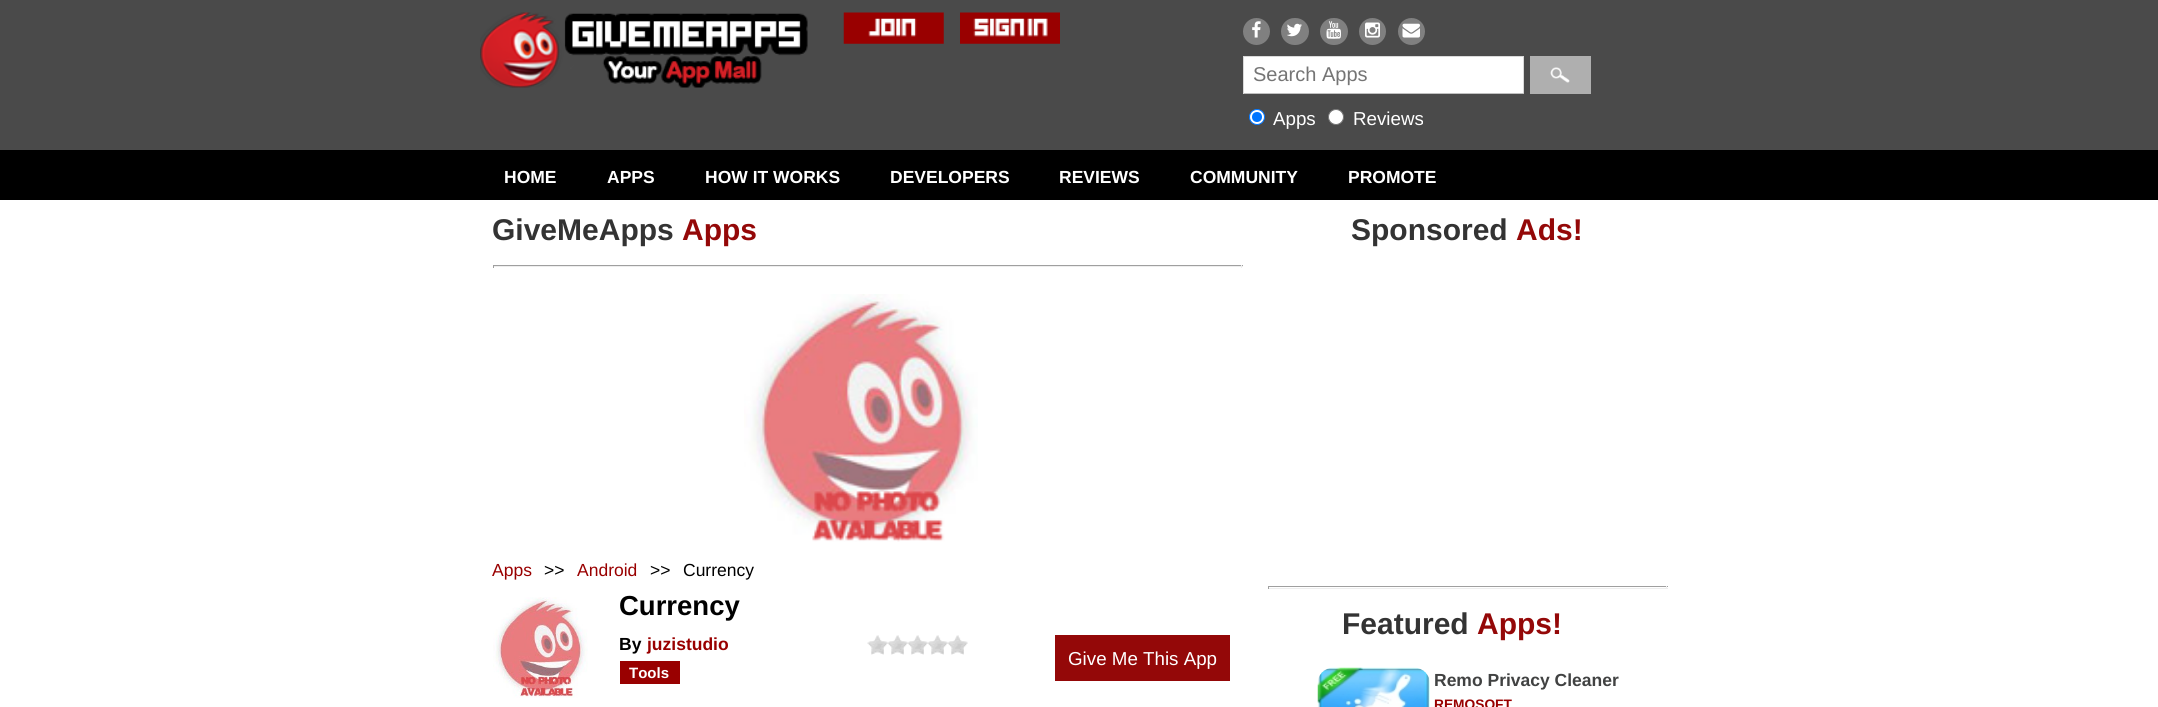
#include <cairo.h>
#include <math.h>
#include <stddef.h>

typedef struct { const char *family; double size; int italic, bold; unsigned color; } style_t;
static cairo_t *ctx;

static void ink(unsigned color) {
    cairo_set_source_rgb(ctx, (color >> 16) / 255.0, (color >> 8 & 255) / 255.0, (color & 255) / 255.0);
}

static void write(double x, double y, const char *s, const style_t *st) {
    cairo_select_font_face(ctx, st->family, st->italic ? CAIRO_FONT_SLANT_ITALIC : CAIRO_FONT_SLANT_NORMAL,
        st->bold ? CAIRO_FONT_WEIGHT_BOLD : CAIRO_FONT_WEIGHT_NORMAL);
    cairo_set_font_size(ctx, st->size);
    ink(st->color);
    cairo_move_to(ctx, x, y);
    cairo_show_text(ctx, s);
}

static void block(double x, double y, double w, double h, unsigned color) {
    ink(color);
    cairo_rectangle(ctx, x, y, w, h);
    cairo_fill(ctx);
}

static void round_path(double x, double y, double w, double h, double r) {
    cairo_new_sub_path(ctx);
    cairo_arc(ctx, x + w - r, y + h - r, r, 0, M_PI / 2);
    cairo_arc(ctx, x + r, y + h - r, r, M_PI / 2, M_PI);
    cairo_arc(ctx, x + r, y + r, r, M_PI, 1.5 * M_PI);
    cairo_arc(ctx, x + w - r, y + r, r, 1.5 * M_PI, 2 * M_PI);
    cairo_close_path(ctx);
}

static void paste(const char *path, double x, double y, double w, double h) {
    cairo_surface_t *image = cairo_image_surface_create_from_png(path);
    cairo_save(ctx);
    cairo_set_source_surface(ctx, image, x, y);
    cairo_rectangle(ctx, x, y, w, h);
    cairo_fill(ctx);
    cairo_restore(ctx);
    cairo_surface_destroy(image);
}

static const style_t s1 = {"Liberation Sans", 20, 0, 0, 0x757575};
static const style_t s2 = {"Liberation Sans", 18.75, 0, 0, 0xffffff};
static const style_t s3 = {"Liberation Sans", 17.5, 0, 1, 0xffffff};
static const style_t s4 = {"Liberation Sans", 30, 0, 1, 0x333333};
static const style_t s5 = {"Liberation Sans", 30, 0, 1, 0x940808};
static const style_t s6 = {"Liberation Sans", 17.5, 0, 0, 0x990000};
static const style_t s7 = {"Liberation Sans", 17.5, 0, 0, 0x000000};
static const style_t s8 = {"Liberation Sans", 27.5, 0, 1, 0x000000};
static const style_t s9 = {"Liberation Sans", 17.5, 0, 1, 0x000000};
static const style_t s10 = {"Liberation Sans", 17.5, 0, 1, 0x990000};
static const style_t s11 = {"Liberation Sans", 15, 0, 1, 0xffffff};
static const style_t s12 = {"Liberation Sans", 17.5, 0, 1, 0x414242};
static const style_t s13 = {"Liberation Sans", 13.75, 0, 1, 0x990000};

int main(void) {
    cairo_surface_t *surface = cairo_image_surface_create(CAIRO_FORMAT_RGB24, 2158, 707);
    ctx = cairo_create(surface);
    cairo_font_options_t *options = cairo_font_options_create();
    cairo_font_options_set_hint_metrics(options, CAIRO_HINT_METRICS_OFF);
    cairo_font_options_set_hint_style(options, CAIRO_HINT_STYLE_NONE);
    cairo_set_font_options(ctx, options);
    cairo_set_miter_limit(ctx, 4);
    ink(0xffffff);
    cairo_paint(ctx);
    block(0, 0, 2158, 150, 0x4a4a4a);
    paste("pic1.png", 480, 12, 328, 76);
    paste("pic2.png", 843, 12, 101, 32);
    paste("pic3.png", 960, 12, 100, 32);
    ink(0x808080);
    cairo_arc(ctx, 1256.5, 31.5, 13.5, 0, 2 * M_PI);
    cairo_fill(ctx);
    paste("pic4.png", 1252, 21, 9, 17);
    round_path(1281, 18, 28, 27, 13.5);
    cairo_fill(ctx);
    paste("pic5.png", 1287, 23, 15, 14);
    round_path(1320, 18, 28, 27, 13.5);
    cairo_fill(ctx);
    paste("pic6.png", 1326, 21, 15, 18);
    cairo_arc(ctx, 1372.5, 31.5, 13.5, 0, 2 * M_PI);
    cairo_fill(ctx);
    paste("pic7.png", 1365, 22, 15, 16);
    cairo_arc(ctx, 1411.5, 31.5, 13.5, 0, 2 * M_PI);
    cairo_fill(ctx);
    paste("pic8.png", 1402, 23, 18, 15);
    block(1244, 57, 279, 36, 0xffffff);
    block(1243, 56, 281, 1, 0xd9d9d9);
    block(1523, 56, 1, 38, 0xd9d9d9);
    block(1243, 93, 281, 1, 0xc0c0c0);
    block(1243, 56, 1, 38, 0xd9d9d9);
    write(1253, 81, "Search Apps", &s1);
    block(1530, 56, 61, 38, 0xafafaf);
    paste("pic9.png", 1550, 67, 20, 16);
    ink(0xffffff);
    cairo_arc(ctx, 1257, 117, 7.5, 0, 2 * M_PI);
    cairo_fill_preserve(ctx);
    ink(0x0075ff);
    cairo_set_line_width(ctx, 1);
    cairo_stroke(ctx);
    cairo_arc(ctx, 1257, 117, 5, 0, 2 * M_PI);
    cairo_fill(ctx);
    write(1273, 125, "Apps", &s2);
    cairo_new_path(ctx);
    cairo_arc(ctx, 1336, 117, 7.5, 0, 2 * M_PI);
    cairo_fill_preserve(ctx);
    ink(0x767676);
    cairo_stroke(ctx);
    write(1353, 125, "Reviews", &s2);
    block(0, 150, 2158, 50, 0x000000);
    write(504, 183, "HOME", &s3);
    write(607, 183, "APPS", &s3);
    write(705, 183, "HOW IT WORKS", &s3);
    write(890, 183, "DEVELOPERS", &s3);
    write(1059, 183, "REVIEWS", &s3);
    write(1190, 183, "COMMUNITY", &s3);
    write(1348, 183, "PROMOTE", &s3);
    write(492, 240, "GiveMeApps", &s4);
    write(682, 240, "Apps", &s5);
    block(493, 265, 750, 1, 0x9f9f9f);
    block(1241, 265, 1, 3, 0xeeeeee);
    block(493, 266, 750, 1, 0xeeeeee);
    block(493, 265, 1, 3, 0x9f9f9f);
    paste("pic10.png", 744, 294, 234, 248);
    write(492, 576, "Apps", &s6);
    write(544, 576, ">>", &s7);
    write(577, 576, "Android", &s6);
    write(650, 576, ">>", &s7);
    write(683, 576, "Currency", &s7);
    paste("pic11.png", 493, 597, 95, 101);
    write(619, 615, "Currency", &s8);
    write(619, 650, "By", &s9);
    write(647, 650, "juzistudio", &s10);
    paste("pic12.png", 867, 635, 21, 20);
    paste("pic13.png", 887, 635, 21, 20);
    paste("pic13.png", 907, 635, 21, 20);
    paste("pic14.png", 927, 635, 21, 20);
    paste("pic14.png", 947, 635, 21, 20);
    block(620, 661, 60, 23, 0x990000);
    write(629, 678, "Tools", &s11);
    block(1055, 635, 175, 46, 0x940808);
    write(1068, 665, "Give Me This App", &s2);
    write(1351, 240, "Sponsored", &s4);
    write(1516, 240, "Ads!", &s5);
    block(1268, 586, 400, 1, 0x9f9f9f);
    block(1666, 586, 1, 3, 0xeeeeee);
    block(1268, 588, 400, 1, 0xeeeeee);
    block(1268, 586, 1, 3, 0x9f9f9f);
    write(1342, 634, "Featured", &s4);
    write(1477, 634, "Apps!", &s5);
    paste("pic15.png", 1317, 667, 113, 40);
    write(1434, 686, "Remo Privacy Cleaner", &s12);
    write(1434, 709, "REMOSOFT", &s13);
    cairo_surface_write_to_png(surface, "screenshot.png");
    cairo_font_options_destroy(options);
    cairo_destroy(ctx);
    cairo_surface_destroy(surface);
    return 0;
}
